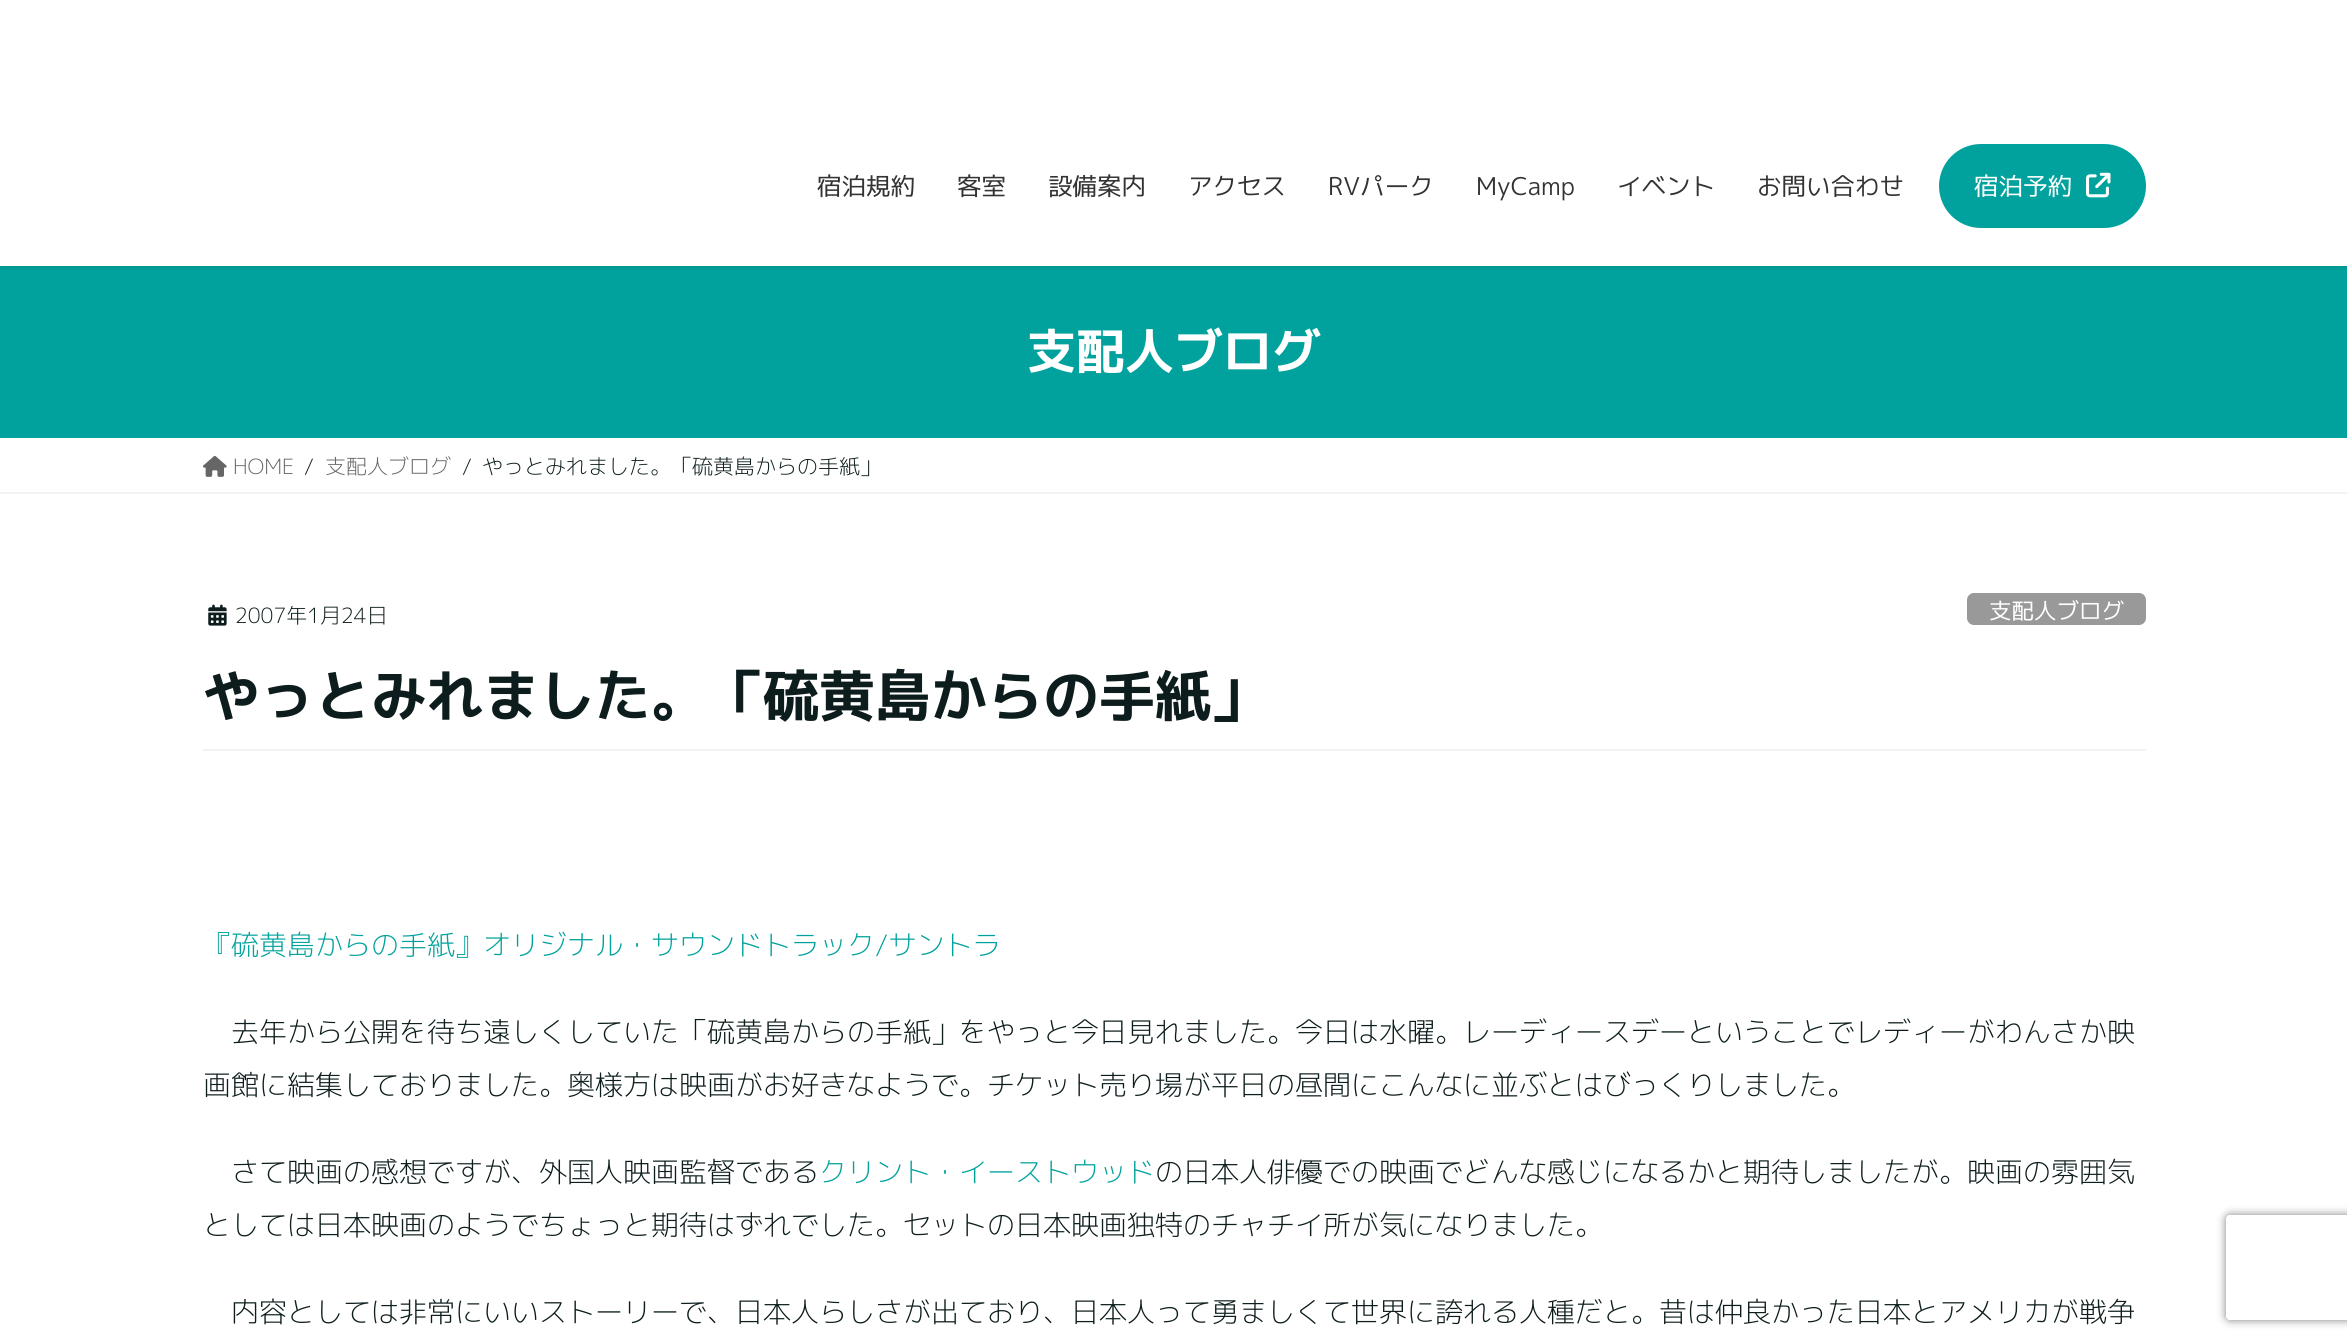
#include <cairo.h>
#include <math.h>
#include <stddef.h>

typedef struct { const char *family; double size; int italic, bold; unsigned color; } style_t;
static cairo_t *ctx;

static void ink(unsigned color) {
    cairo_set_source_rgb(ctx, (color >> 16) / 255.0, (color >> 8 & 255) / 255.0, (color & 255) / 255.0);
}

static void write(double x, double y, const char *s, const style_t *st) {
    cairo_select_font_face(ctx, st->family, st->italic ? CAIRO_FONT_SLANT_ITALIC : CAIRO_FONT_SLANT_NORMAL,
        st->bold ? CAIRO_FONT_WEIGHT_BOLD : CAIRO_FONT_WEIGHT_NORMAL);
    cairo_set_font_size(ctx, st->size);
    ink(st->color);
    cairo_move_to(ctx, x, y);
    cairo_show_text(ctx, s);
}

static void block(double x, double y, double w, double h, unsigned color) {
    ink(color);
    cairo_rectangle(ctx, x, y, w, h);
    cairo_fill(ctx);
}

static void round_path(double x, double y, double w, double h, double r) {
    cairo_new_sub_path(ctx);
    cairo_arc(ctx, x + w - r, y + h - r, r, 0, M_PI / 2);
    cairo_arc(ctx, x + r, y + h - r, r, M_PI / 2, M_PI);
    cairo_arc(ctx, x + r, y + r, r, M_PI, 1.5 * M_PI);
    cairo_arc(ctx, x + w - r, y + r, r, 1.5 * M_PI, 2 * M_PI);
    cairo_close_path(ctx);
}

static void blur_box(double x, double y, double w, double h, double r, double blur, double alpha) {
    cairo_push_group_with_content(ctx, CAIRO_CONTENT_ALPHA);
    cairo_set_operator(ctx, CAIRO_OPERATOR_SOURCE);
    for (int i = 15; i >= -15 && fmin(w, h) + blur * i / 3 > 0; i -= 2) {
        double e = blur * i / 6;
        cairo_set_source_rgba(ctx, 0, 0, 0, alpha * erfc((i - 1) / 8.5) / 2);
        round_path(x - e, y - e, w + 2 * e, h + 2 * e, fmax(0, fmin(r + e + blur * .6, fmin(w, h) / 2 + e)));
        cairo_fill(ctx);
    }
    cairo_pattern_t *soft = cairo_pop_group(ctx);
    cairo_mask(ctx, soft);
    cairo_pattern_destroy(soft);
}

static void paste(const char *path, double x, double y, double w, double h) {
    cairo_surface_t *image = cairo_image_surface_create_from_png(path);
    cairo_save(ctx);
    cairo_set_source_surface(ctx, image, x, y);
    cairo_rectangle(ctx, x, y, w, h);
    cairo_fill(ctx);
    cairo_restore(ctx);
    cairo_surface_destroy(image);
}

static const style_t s1 = {"M PLUS 1p", 24.5, 0, 0, 0x333333};
static const style_t s2 = {"M PLUS 1p", 24.5, 0, 0, 0xffffff};
static const style_t s3 = {"M PLUS 1p", 49, 0, 1, 0xffffff};
static const style_t s4 = {"M PLUS 1p Light", 21, 0, 0, 0x666666};
static const style_t s5 = {"M PLUS 1p Light", 21, 0, 0, 0x0d1c1c};
static const style_t s6 = {"M PLUS 1p", 22.5, 0, 0, 0xffffff};
static const style_t s7 = {"M PLUS 1p", 56, 0, 1, 0x0d1c1c};
static const style_t s8 = {"M PLUS 1p Light", 28, 0, 0, 0x01a29d};
static const style_t s9 = {"M PLUS 1p Light", 28, 0, 0, 0x0d1c1c};

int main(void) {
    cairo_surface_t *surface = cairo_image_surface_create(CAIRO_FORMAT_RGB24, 2347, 1344);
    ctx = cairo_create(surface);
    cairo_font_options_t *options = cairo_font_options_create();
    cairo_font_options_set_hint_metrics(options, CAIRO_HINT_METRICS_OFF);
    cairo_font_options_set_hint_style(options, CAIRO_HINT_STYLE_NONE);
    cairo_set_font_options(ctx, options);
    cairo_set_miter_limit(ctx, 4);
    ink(0xffffff);
    cairo_paint(ctx);
    block(0, 266, 2347, 172, 0x01a29d);
    cairo_save(ctx);
    cairo_rectangle(ctx, 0, 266, 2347, 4);
    cairo_clip(ctx);
    ink(0x000000);
    blur_box(0, 2, 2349, 266, 0, 2.5, 0.1);
    cairo_restore(ctx);
    write(817, 195, "宿泊規約", &s1);
    write(957, 195, "客室", &s1);
    write(1048, 195, "設備案内", &s1);
    write(1188, 195, "アクセス", &s1);
    write(1328, 195, "RVパーク", &s1);
    write(1476, 195, "MyCamp", &s1);
    write(1617, 195, "イベント", &s1);
    write(1757, 195, "お問い合わせ", &s1);
    ink(0x01a29d);
    round_path(1939, 144, 207, 84, 42);
    cairo_fill(ctx);
    write(1974, 195, "宿泊予約", &s2);
    paste("pic1.png", 2086, 172, 25, 26);
    write(1027, 369, "支配人ブログ", &s3);
    block(0, 492, 2347, 2, 0xf2f2f2);
    paste("pic2.png", 203, 455, 24, 22);
    write(233, 474, "HOME", &s4);
    write(304, 474, "/", &s5);
    write(325, 474, "支配人ブログ", &s4);
    write(462, 474, "/", &s5);
    write(482, 474, "やっとみれました。「硫黄島からの手紙」", &s5);
    block(203, 749, 1943, 2, 0xf2f2f2);
    paste("pic3.png", 208, 604, 19, 22);
    write(235, 623, "2007年1月24日", &s5);
    ink(0x999999);
    round_path(1967, 593, 179, 32, 7);
    cairo_fill(ctx);
    write(1989, 619, "支配人ブログ", &s6);
    write(203, 716, "やっとみれました。「硫黄島からの手紙」", &s7);
    write(203, 955, "『硫黄島からの手紙』オリジナル・サウンドトラック/サントラ", &s8);
    write(231, 1042, "去年から公開を待ち遠しくしていた「硫黄島からの手紙」をやっと今日見れました。今日は水曜。レーディースデーということでレディーがわんさか映", &s9);
    write(203, 1095, "画館に結集しておりました。奥様方は映画がお好きなようで。チケット売り場が平日の昼間にこんなに並ぶとはびっくりしました。", &s9);
    write(231, 1182, "さて映画の感想ですが、外国人映画監督である", &s9);
    write(819, 1182, "クリント・イーストウッド", &s8);
    write(1155, 1182, "の日本人俳優での映画でどんな感じになるかと期待しましたが。映画の雰囲気", &s9);
    write(203, 1235, "としては日本映画のようでちょっと期待はずれでした。セットの日本映画独特のチャチイ所が気になりました。", &s9);
    write(231, 1322, "内容としては非常にいいストーリーで、日本人らしさが出ており、日本人って勇ましくて世界に誇れる人種だと。昔は仲良かった日本とアメリカが戦争", &s9);
    cairo_save(ctx);
    cairo_set_fill_rule(ctx, CAIRO_FILL_RULE_EVEN_ODD);
    cairo_new_path(ctx);
    cairo_move_to(ctx, 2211, 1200);
    cairo_line_to(ctx, 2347, 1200);
    cairo_line_to(ctx, 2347, 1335);
    cairo_line_to(ctx, 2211, 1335);
    cairo_close_path(ctx);
    cairo_move_to(ctx, 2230, 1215);
    cairo_line_to(ctx, 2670, 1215);
    cairo_curve_to(ctx, 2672, 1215, 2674, 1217, 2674, 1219);
    cairo_line_to(ctx, 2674, 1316);
    cairo_curve_to(ctx, 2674, 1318, 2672, 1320, 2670, 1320);
    cairo_line_to(ctx, 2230, 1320);
    cairo_curve_to(ctx, 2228, 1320, 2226, 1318, 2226, 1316);
    cairo_line_to(ctx, 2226, 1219);
    cairo_curve_to(ctx, 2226, 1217, 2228, 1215, 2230, 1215);
    cairo_close_path(ctx);
    cairo_clip(ctx);
    ink(0x808080);
    blur_box(2226, 1215, 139, 105, 4, 4.5, 1);
    cairo_restore(ctx);
    cairo_surface_write_to_png(surface, "screenshot.png");
    cairo_font_options_destroy(options);
    cairo_destroy(ctx);
    cairo_surface_destroy(surface);
    return 0;
}
